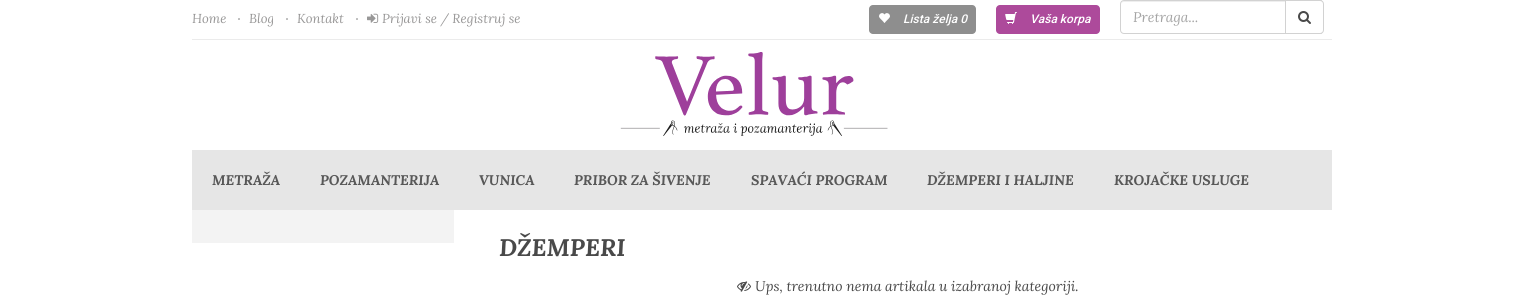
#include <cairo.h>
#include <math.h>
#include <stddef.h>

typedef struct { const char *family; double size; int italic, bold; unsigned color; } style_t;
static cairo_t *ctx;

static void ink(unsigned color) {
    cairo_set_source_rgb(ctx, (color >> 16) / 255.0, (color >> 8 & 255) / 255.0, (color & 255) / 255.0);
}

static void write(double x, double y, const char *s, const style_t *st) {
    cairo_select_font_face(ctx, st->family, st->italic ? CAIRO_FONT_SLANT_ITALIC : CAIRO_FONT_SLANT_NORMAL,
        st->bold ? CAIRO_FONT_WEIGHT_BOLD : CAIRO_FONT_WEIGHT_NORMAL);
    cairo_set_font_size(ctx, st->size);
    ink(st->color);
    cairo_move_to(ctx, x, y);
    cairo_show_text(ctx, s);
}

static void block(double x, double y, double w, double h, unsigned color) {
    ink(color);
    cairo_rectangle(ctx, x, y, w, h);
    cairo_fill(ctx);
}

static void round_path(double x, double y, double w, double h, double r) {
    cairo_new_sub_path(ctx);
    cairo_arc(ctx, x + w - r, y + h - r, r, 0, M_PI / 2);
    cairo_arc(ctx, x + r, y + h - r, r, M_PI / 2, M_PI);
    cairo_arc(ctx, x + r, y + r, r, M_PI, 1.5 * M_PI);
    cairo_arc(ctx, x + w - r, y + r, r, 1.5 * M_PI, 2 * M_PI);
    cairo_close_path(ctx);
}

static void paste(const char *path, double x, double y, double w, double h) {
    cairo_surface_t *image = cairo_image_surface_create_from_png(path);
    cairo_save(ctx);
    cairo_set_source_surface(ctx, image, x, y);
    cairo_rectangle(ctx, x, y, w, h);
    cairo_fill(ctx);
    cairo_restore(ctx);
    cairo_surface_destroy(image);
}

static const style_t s1 = {"Lora", 13, 1, 0, 0x989797};
static const style_t s2 = {"Roboto Medium", 12, 1, 0, 0xffffff};
static const style_t s3 = {"Lora", 14, 1, 0, 0xa4a4a4};
static const style_t s4 = {"Lora", 14, 1, 1, 0x585858};
static const style_t s5 = {"Lora", 24, 1, 1, 0x494949};
static const style_t s6 = {"Lora", 14, 1, 0, 0x494949};

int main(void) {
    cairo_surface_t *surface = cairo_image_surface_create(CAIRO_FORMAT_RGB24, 1523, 303);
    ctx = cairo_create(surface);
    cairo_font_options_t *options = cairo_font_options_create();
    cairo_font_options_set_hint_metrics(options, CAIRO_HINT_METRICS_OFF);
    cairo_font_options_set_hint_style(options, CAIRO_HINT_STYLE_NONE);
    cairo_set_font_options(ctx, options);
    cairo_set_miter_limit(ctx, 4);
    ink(0xffffff);
    cairo_paint(ctx);
    block(192, 39, 1140, 1, 0xebebeb);
    write(192, 23, "Home", &s1);
    paste("pic1.png", 238, 18, 2, 2);
    write(249, 23, "Blog", &s1);
    paste("pic1.png", 286, 18, 2, 2);
    write(297, 23, "Kontakt", &s1);
    paste("pic1.png", 356, 18, 2, 2);
    paste("pic2.png", 367, 13, 12, 10);
    write(382, 23, "Prijavi se / Registruj se", &s1);
    ink(0x8e8e8e);
    round_path(869, 5, 107, 29, 4);
    cairo_fill(ctx);
    paste("pic3.png", 879, 13, 11, 10);
    write(903, 23, "Lista želja 0", &s2);
    ink(0xad4a9b);
    round_path(996, 5, 104, 29, 4);
    cairo_fill(ctx);
    paste("pic4.png", 1005, 12, 12, 12);
    write(1030, 23, "Vaša korpa", &s2);
    ink(0xeeeeee);
    cairo_new_path(ctx);
    cairo_move_to(ctx, 1124, 2);
    cairo_line_to(ctx, 1321, 2);
    cairo_line_to(ctx, 1321, 1);
    cairo_line_to(ctx, 1124, 1);
    cairo_curve_to(ctx, 1122, 1, 1121, 3, 1121, 5);
    cairo_curve_to(ctx, 1121, 3, 1122, 2, 1124, 2);
    cairo_close_path(ctx);
    cairo_fill(ctx);
    cairo_new_path(ctx);
    cairo_move_to(ctx, 1124, 0.5);
    cairo_line_to(ctx, 1321.5, 0.5);
    cairo_line_to(ctx, 1321.5, 33.5);
    cairo_line_to(ctx, 1124, 33.5);
    cairo_curve_to(ctx, 1122, 33.5, 1120.5, 32, 1120.5, 30);
    cairo_line_to(ctx, 1120.5, 4);
    cairo_curve_to(ctx, 1120.5, 2, 1122, 0.5, 1124, 0.5);
    cairo_close_path(ctx);
    ink(0xd2d2d2);
    cairo_set_line_width(ctx, 1);
    cairo_stroke(ctx);
    write(1133, 22, "Pretraga...", &s3);
    ink(0xffffff);
    cairo_new_path(ctx);
    cairo_move_to(ctx, 1285.5, 0.5);
    cairo_line_to(ctx, 1320, 0.5);
    cairo_curve_to(ctx, 1322, 0.5, 1323.5, 2, 1323.5, 4);
    cairo_line_to(ctx, 1323.5, 30);
    cairo_curve_to(ctx, 1323.5, 32, 1322, 33.5, 1320, 33.5);
    cairo_line_to(ctx, 1285.5, 33.5);
    cairo_close_path(ctx);
    cairo_fill_preserve(ctx);
    ink(0xd2d2d2);
    cairo_stroke(ctx);
    paste("pic5.png", 1298, 11, 13, 13);
    paste("pic6.png", 620, 52, 268, 84);
    block(192, 150, 1140, 60, 0xe6e6e6);
    write(212, 185, "METRAŽA", &s4);
    write(320, 185, "POZAMANTERIJA", &s4);
    write(479, 185, "VUNICA", &s4);
    write(574, 185, "PRIBOR ZA ŠIVENJE", &s4);
    write(751, 185, "SPAVAĆI PROGRAM", &s4);
    write(927, 185, "DŽEMPERI I HALJINE", &s4);
    write(1114, 185, "KROJAČKE USLUGE", &s4);
    block(192, 210, 262, 33, 0xf3f3f3);
    write(499, 256, "DŽEMPERI", &s5);
    paste("pic7.png", 737, 281, 14, 11);
    write(755, 291, "Ups, trenutno nema artikala u izabranoj kategoriji.", &s6);
    cairo_surface_write_to_png(surface, "screenshot.png");
    cairo_font_options_destroy(options);
    cairo_destroy(ctx);
    cairo_surface_destroy(surface);
    return 0;
}
